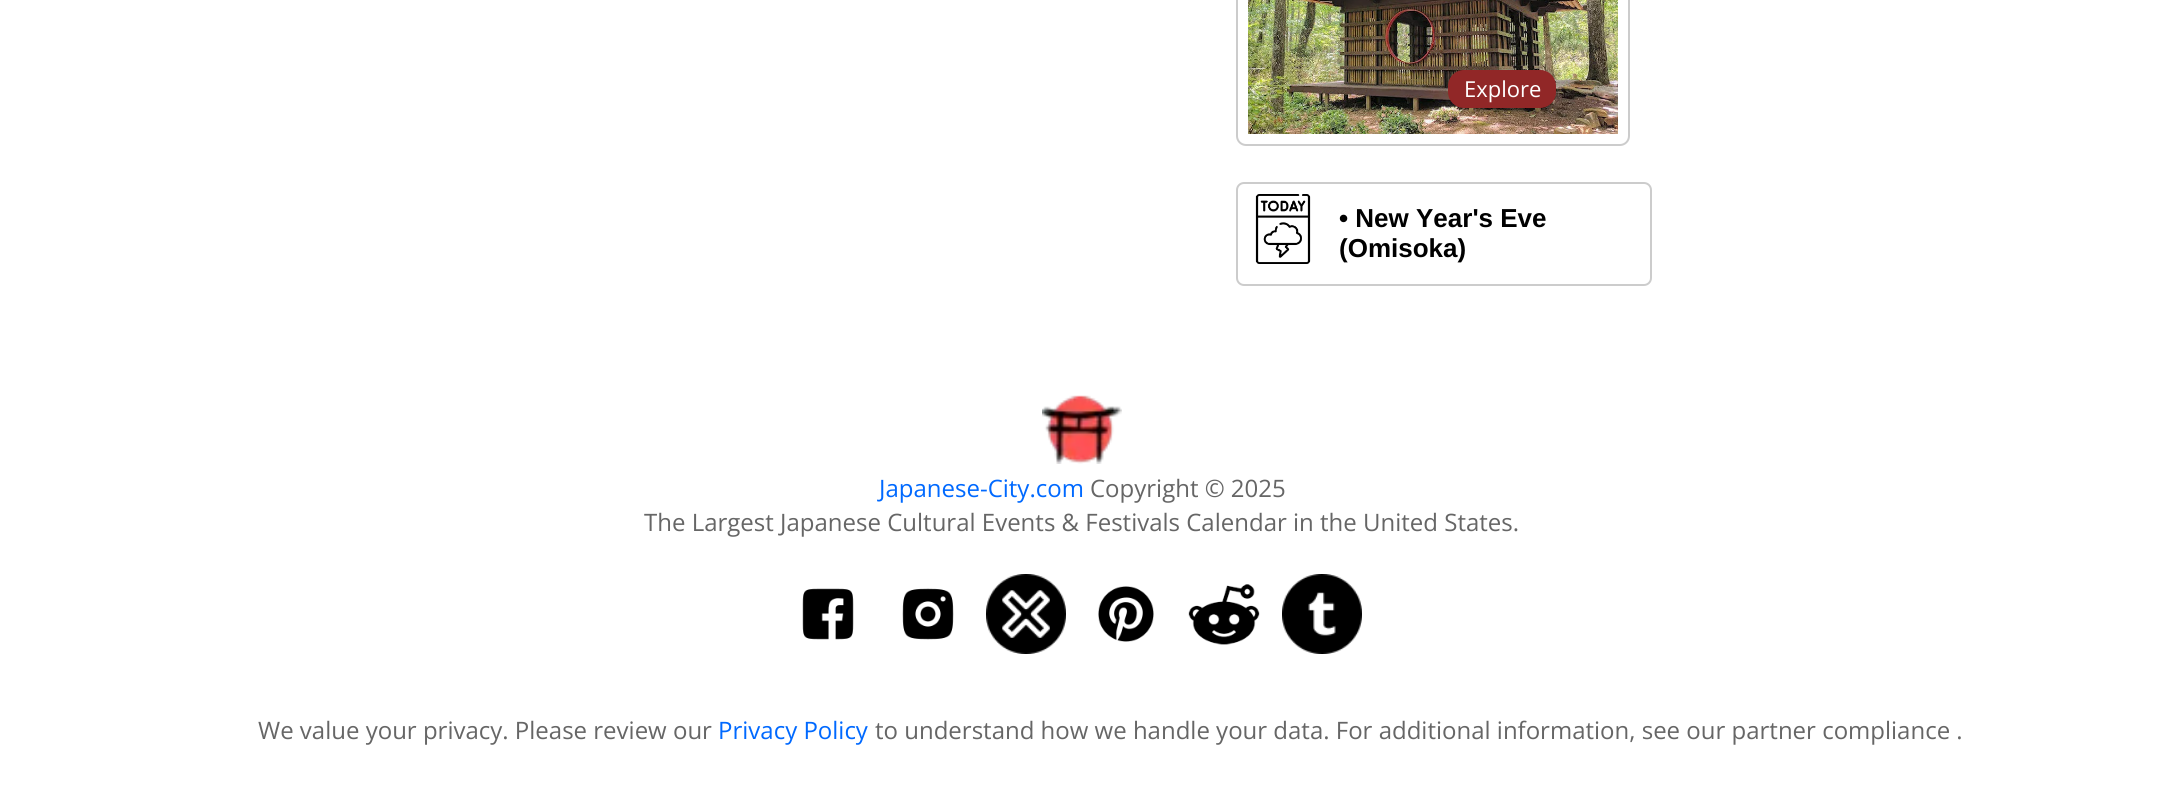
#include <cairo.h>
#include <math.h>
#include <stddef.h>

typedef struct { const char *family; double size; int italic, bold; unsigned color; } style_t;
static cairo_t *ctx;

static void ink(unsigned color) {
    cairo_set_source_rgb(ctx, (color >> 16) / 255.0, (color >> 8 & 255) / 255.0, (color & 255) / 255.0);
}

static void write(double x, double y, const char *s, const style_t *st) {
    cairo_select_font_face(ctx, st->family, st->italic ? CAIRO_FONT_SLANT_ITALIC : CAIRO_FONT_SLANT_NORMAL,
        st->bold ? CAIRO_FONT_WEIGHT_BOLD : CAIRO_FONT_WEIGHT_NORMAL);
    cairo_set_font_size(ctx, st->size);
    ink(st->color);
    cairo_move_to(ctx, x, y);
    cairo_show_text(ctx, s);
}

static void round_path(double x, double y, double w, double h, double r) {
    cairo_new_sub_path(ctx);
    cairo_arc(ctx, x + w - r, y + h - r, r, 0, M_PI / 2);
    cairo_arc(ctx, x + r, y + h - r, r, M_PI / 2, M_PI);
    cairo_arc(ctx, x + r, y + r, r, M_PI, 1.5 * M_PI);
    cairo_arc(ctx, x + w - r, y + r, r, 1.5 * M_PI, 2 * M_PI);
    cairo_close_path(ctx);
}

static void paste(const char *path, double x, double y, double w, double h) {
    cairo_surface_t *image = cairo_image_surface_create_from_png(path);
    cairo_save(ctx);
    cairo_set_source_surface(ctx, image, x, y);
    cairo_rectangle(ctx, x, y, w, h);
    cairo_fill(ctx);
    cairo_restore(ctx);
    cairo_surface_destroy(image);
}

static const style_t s1 = {"Open Sans", 22, 0, 0, 0xffffff};
static const style_t s2 = {"Liberation Sans", 26, 0, 1, 0x000000};
static const style_t s3 = {"Open Sans", 24, 0, 0, 0x0069ff};
static const style_t s4 = {"Open Sans", 24, 0, 0, 0x666666};

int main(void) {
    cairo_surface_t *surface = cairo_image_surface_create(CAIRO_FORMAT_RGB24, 2163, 787);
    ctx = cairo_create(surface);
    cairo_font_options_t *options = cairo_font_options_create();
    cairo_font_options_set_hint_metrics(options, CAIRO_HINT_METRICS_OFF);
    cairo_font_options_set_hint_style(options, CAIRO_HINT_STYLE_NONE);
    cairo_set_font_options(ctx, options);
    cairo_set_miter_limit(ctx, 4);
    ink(0xffffff);
    cairo_paint(ctx);
    round_path(1237, -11, 392, 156, 9);
    ink(0xcccccc);
    cairo_stroke(ctx);
    paste("pic1.png", 1248, 0, 370, 134);
    ink(0x912727);
    round_path(1448, 70, 108, 38, 16);
    cairo_fill(ctx);
    write(1464, 97, "Explore", &s1);
    round_path(1237, 183, 414, 102, 7);
    ink(0xcccccc);
    cairo_stroke(ctx);
    paste("pic2.png", 1255, 194, 56, 70);
    write(1339, 227, "• New Year's Eve", &s2);
    write(1339, 257, "(Omisoka)", &s2);
    paste("pic3.png", 1042, 395, 80, 69);
    write(879, 497, "Japanese-City.com", &s3);
    write(1090, 497, "Copyright © 2025", &s4);
    write(644, 531, "The Largest Japanese Cultural Events & Festivals Calendar in the United States.", &s4);
    paste("pic4.png", 802, 588, 52, 52);
    paste("pic5.png", 902, 588, 52, 52);
    paste("pic6.png", 986, 574, 80, 80);
    paste("pic7.png", 1098, 586, 56, 56);
    paste("pic8.png", 1188, 584, 72, 61);
    paste("pic9.png", 1282, 574, 80, 80);
    write(258, 739, "We value your privacy. Please review our", &s4);
    write(718, 739, "Privacy Policy", &s3);
    write(875, 739, "to understand how we handle your data. For additional information, see our partner compliance .", &s4);
    cairo_surface_write_to_png(surface, "screenshot.png");
    cairo_font_options_destroy(options);
    cairo_destroy(ctx);
    cairo_surface_destroy(surface);
    return 0;
}
